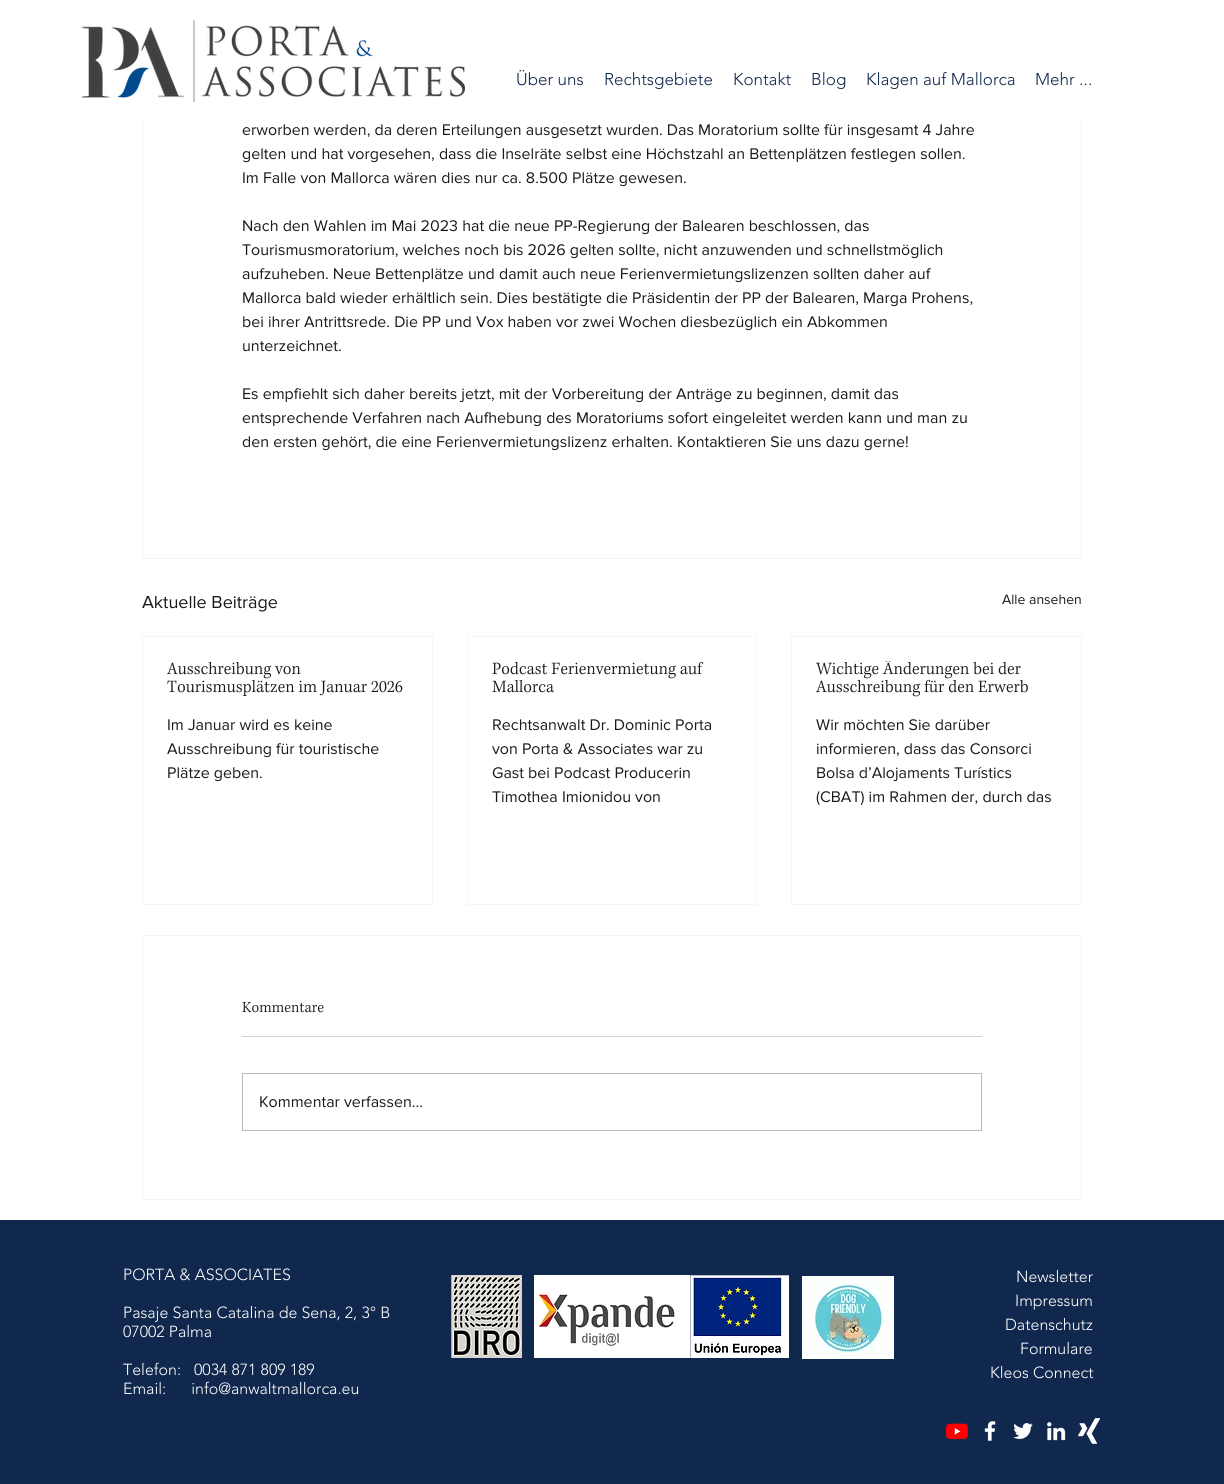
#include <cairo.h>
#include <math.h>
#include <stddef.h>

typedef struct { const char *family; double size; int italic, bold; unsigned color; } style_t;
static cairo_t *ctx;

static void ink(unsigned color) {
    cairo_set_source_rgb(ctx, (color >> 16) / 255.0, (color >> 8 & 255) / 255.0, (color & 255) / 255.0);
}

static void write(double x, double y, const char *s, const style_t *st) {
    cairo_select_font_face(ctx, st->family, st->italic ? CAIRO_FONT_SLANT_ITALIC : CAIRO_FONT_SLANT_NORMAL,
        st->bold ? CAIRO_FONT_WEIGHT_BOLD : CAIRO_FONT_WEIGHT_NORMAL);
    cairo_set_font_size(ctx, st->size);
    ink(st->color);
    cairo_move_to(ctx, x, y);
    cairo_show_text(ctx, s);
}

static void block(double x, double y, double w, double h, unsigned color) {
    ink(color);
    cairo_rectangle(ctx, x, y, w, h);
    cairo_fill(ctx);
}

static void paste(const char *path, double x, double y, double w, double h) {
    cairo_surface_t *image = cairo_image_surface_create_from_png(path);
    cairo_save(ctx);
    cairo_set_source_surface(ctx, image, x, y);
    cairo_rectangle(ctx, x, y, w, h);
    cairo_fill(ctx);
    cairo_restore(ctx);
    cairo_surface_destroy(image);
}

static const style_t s1 = {"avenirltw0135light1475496 Light", 17, 0, 0, 0x10284d};
static const style_t s2 = {"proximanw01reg", 16, 0, 0, 0x1a1a1a};
static const style_t s3 = {"proximanw01reg", 18, 0, 0, 0x1a1a1a};
static const style_t s4 = {"proximanw01reg", 14, 0, 0, 0x1a1a1a};
static const style_t s5 = {"avenirltw0135light1475496 Light", 16, 0, 0, 0xffffff};

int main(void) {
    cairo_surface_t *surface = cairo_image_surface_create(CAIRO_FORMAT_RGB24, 1224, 1484);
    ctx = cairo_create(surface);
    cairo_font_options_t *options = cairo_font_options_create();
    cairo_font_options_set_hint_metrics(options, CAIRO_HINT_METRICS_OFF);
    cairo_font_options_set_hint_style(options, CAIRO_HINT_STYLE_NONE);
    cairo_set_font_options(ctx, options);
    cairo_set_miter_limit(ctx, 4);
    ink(0xffffff);
    cairo_paint(ctx);
    cairo_rectangle(ctx, 142.5, -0.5, 939, 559);
    ink(0xf4f5f7);
    cairo_set_line_width(ctx, 1);
    cairo_stroke(ctx);
    block(142, 0, 940, 118, 0xffffff);
    paste("pic1.png", 82, 20, 383, 82);
    write(516, 85, "Über uns", &s1);
    write(604, 85, "Rechtsgebiete", &s1);
    write(733, 85, "Kontakt", &s1);
    write(811, 85, "Blog", &s1);
    write(866, 85, "Klagen auf Mallorca", &s1);
    write(1035, 85, "Mehr ...", &s1);
    write(242, 135, "erworben werden, da deren Erteilungen ausgesetzt wurden. Das Moratorium sollte für insgesamt 4 Jahre", &s2);
    write(242, 159, "gelten und hat vorgesehen, dass die Inselräte selbst eine Höchstzahl an Bettenplätzen festlegen sollen.", &s2);
    write(242, 183, "Im Falle von Mallorca wären dies nur ca. 8.500 Plätze gewesen.", &s2);
    write(242, 231, "Nach den Wahlen im Mai 2023 hat die neue PP-Regierung der Balearen beschlossen, das", &s2);
    write(242, 255, "Tourismusmoratorium, welches noch bis 2026 gelten sollte, nicht anzuwenden und schnellstmöglich", &s2);
    write(242, 279, "aufzuheben. Neue Bettenplätze und damit auch neue Ferienvermietungslizenzen sollten daher auf", &s2);
    write(242, 303, "Mallorca bald wieder erhältlich sein. Dies bestätigte die Präsidentin der PP der Balearen, Marga Prohens,", &s2);
    write(242, 327, "bei ihrer Antrittsrede. Die PP und Vox haben vor zwei Wochen diesbezüglich ein Abkommen", &s2);
    write(242, 351, "unterzeichnet.", &s2);
    write(242, 399, "Es empfiehlt sich daher bereits jetzt, mit der Vorbereitung der Anträge zu beginnen, damit das", &s2);
    write(242, 423, "entsprechende Verfahren nach Aufhebung des Moratoriums sofort eingeleitet werden kann und man zu", &s2);
    write(242, 447, "den ersten gehört, die eine Ferienvermietungslizenz erhalten. Kontaktieren Sie uns dazu gerne!", &s2);
    write(142, 608, "Aktuelle Beiträge", &s3);
    write(1002, 604, "Alle ansehen", &s4);
    cairo_rectangle(ctx, 142.5, 636.5, 290, 268);
    ink(0xf4f5f7);
    cairo_stroke(ctx);
    paste("pic2.png", 167, 662, 134, 17);
    paste("pic3.png", 167, 680, 236, 17);
    write(167, 730, "Im Januar wird es keine", &s2);
    write(167, 754, "Ausschreibung für touristische", &s2);
    write(167, 778, "Plätze geben.", &s2);
    cairo_rectangle(ctx, 467.5, 636.5, 289, 268);
    ink(0xf4f5f7);
    cairo_stroke(ctx);
    paste("pic4.png", 492, 661, 212, 18);
    paste("pic5.png", 492, 680, 62, 13);
    write(492, 730, "Rechtsanwalt Dr. Dominic Porta", &s2);
    write(492, 754, "von Porta & Associates war zu", &s2);
    write(492, 778, "Gast bei Podcast Producerin", &s2);
    write(492, 802, "Timothea Imionidou von", &s2);
    cairo_rectangle(ctx, 791.5, 636.5, 290, 268);
    ink(0xf4f5f7);
    cairo_stroke(ctx);
    paste("pic6.png", 816, 661, 205, 18);
    paste("pic7.png", 816, 679, 212, 18);
    write(816, 730, "Wir möchten Sie darüber", &s2);
    write(816, 754, "informieren, dass das Consorci", &s2);
    write(816, 778, "Bolsa d’Alojaments Turístics", &s2);
    write(816, 802, "(CBAT) im Rahmen der, durch das", &s2);
    cairo_rectangle(ctx, 142.5, 935.5, 939, 264);
    ink(0xf4f5f7);
    cairo_stroke(ctx);
    paste("pic8.png", 242, 1002, 82, 11);
    block(242, 1036, 740, 1, 0xd1d1d1);
    cairo_rectangle(ctx, 242.5, 1073.5, 739, 57);
    ink(0xbababa);
    cairo_stroke(ctx);
    write(259, 1107, "Kommentar verfassen...", &s2);
    block(0, 1220, 1224, 264, 0x10284d);
    write(123, 1280, "PORTA & ASSOCIATES", &s5);
    write(123, 1318, "Pasaje Santa Catalina de Sena, 2, 3° B", &s5);
    write(123, 1337, "07002 Palma", &s5);
    write(123, 1375, "Telefon:", &s5);
    write(194, 1375, "0034 871 809 189", &s5);
    write(123, 1394, "Email:      info@anwaltmallorca.eu", &s5);
    paste("pic9.png", 451, 1275, 71, 83);
    paste("pic10.png", 534, 1275, 156, 83);
    paste("pic11.png", 690, 1275, 99, 83);
    paste("pic12.png", 802, 1276, 92, 83);
    write(1016, 1282, "Newsletter", &s5);
    write(1015, 1306, "Impressum", &s5);
    write(1005, 1330, "Datenschutz", &s5);
    write(1020, 1354, "Formulare", &s5);
    write(990, 1378, "Kleos Connect", &s5);
    paste("pic13.png", 945, 1423, 24, 17);
    paste("pic14.png", 984, 1421, 12, 20);
    paste("pic15.png", 1013, 1423, 20, 17);
    paste("pic16.png", 1047, 1422, 19, 19);
    paste("pic17.png", 1078, 1418, 23, 26);
    cairo_surface_write_to_png(surface, "screenshot.png");
    cairo_font_options_destroy(options);
    cairo_destroy(ctx);
    cairo_surface_destroy(surface);
    return 0;
}
